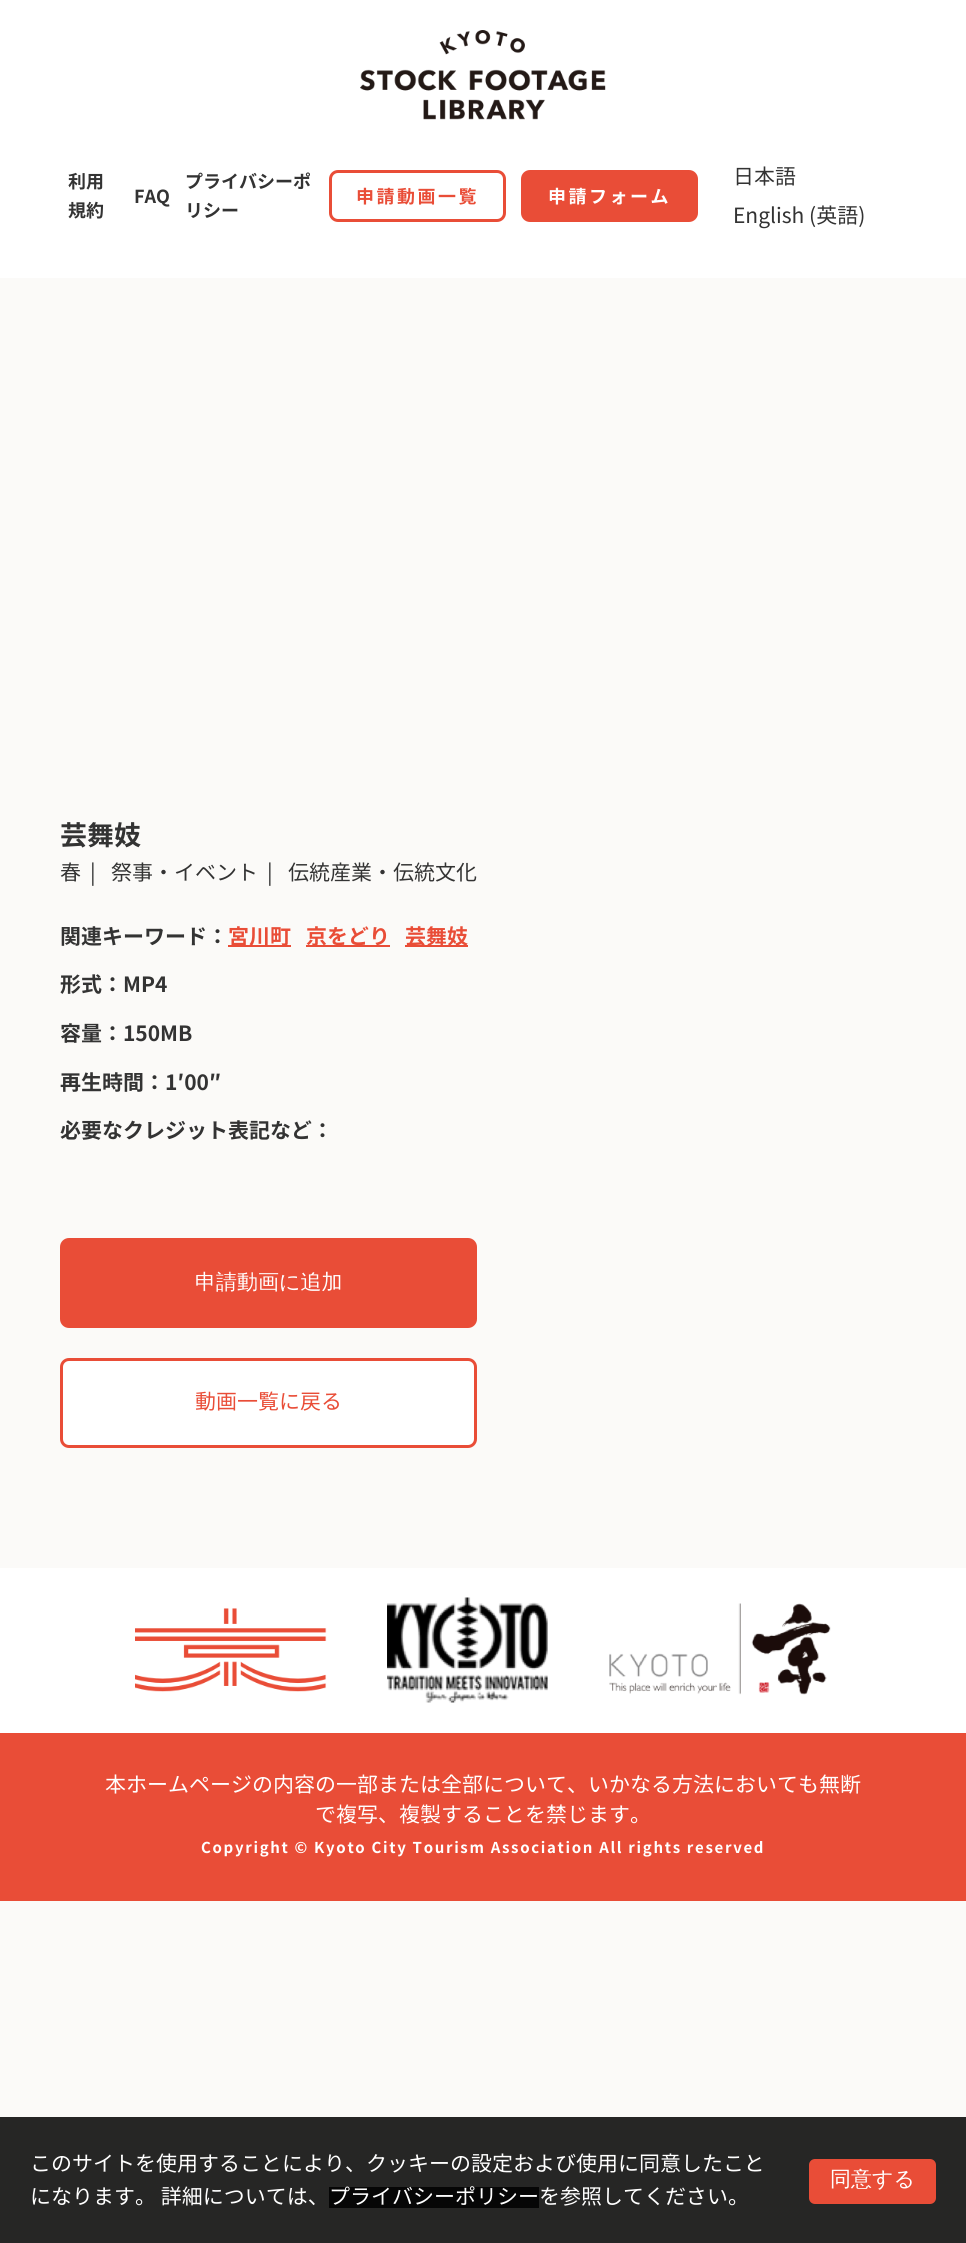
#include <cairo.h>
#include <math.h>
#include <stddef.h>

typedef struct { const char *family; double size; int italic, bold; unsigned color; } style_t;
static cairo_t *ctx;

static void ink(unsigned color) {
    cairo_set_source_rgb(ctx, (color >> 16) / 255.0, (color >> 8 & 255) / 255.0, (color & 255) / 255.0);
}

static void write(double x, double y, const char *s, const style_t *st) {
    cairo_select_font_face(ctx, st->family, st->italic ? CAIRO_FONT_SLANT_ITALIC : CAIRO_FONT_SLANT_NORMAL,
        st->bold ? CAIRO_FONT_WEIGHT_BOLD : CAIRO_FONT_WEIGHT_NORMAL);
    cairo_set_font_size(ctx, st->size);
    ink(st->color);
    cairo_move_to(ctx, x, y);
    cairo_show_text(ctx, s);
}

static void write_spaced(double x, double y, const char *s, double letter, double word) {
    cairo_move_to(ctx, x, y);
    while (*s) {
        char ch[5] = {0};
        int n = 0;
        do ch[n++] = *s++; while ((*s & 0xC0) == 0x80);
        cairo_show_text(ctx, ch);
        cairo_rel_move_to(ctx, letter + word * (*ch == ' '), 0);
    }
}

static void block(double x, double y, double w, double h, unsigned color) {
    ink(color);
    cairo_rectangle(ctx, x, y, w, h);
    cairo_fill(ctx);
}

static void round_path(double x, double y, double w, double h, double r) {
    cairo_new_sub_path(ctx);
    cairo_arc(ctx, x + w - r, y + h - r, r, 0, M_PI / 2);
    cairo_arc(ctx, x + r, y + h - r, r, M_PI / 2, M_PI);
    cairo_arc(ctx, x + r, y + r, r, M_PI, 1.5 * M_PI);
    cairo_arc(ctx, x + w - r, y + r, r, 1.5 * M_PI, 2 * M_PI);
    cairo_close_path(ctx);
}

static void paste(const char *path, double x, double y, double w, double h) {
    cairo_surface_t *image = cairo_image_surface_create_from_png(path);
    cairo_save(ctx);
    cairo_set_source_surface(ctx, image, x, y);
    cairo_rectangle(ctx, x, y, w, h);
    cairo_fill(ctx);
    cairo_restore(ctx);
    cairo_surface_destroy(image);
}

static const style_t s1 = {"Noto Sans CJK JP", 18, 0, 1, 0x333333};
static const style_t s2 = {"Noto Sans CJK JP", 21, 0, 0, 0x333333};
static const style_t s3 = {"Noto Sans CJK JP", 27, 0, 1, 0x333333};
static const style_t s4 = {"Noto Sans CJK JP", 21, 0, 1, 0x333333};
static const style_t s5 = {"Noto Sans CJK JP", 21, 0, 1, 0xe94d37};
static const style_t s6 = {"WenQuanYi Zen Hei Medium", 21, 0, 0, 0xffffff};
static const style_t s7 = {"Noto Sans CJK JP", 21, 0, 0, 0xe94d37};
static const style_t s8 = {"Noto Sans CJK JP", 21, 0, 0, 0xffffff};

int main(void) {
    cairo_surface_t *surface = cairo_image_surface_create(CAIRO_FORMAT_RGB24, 966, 2243);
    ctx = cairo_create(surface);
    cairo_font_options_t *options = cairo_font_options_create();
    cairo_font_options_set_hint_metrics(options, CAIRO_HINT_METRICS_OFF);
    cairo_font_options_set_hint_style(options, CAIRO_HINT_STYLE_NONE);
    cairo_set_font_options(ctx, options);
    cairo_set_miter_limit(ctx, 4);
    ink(0xfbfaf8);
    cairo_paint(ctx);
    block(0, 0, 966, 278, 0xffffff);
    paste("pic1.png", 360, 30, 246, 90);
    write(68, 188, "利用", &s1);
    write(68, 217, "規約", &s1);
    write(134, 203, "FAQ", &s1);
    write(185, 188, "プライバシーポ", &s1);
    write(185, 217, "リシー", &s1);
    round_path(330.5, 171.5, 174, 49, 7.5);
    ink(0xe94d37);
    cairo_set_line_width(ctx, 3);
    cairo_stroke(ctx);
    write_spaced(356, 203, "申請動画一覧", 2.5, 0);
    round_path(522.5, 171.5, 174, 49, 7.5);
    cairo_fill_preserve(ctx);
    cairo_stroke(ctx);
    ink(0xffffff);
    write_spaced(548, 203, "申請フォーム", 2.5, 0);
    write(733, 184, "日本語", &s2);
    write(733, 223, "English (英語)", &s2);
    write(60, 845, "芸舞妓", &s3);
    write(60, 880, "春", &s2);
    write(90, 880, "|", &s2);
    write(111, 880, "祭事・イベント", &s2);
    write(267, 880, "|", &s2);
    write(288, 880, "伝統産業・伝統文化", &s2);
    write(60, 944, "関連キーワード：", &s4);
    block(228, 945, 63, 2, 0xe94d37);
    write(228, 944, "宮川町", &s5);
    block(306, 945, 84, 2, 0xe94d37);
    write(306, 944, "京をどり", &s5);
    block(405, 945, 63, 2, 0xe94d37);
    write(405, 944, "芸舞妓", &s5);
    write(60, 992, "形式：MP4", &s4);
    write(60, 1041, "容量：150MB", &s4);
    write(60, 1090, "再生時間：1′00″", &s4);
    write(60, 1138, "必要なクレジット表記など：", &s4);
    ink(0xe94d37);
    round_path(61.5, 1239.5, 414, 87, 7.5);
    cairo_fill_preserve(ctx);
    cairo_stroke(ctx);
    write(195, 1289, "申請動画に追加", &s6);
    round_path(61.5, 1359.5, 414, 87, 7.5);
    cairo_fill_preserve(ctx);
    ink(0xe94d37);
    cairo_stroke(ctx);
    write(195, 1409, "動画一覧に戻る", &s7);
    block(0, 1568, 966, 165, 0xffffff);
    paste("pic2.png", 135, 1608, 192, 84);
    paste("pic3.png", 387, 1597, 161, 106);
    paste("pic4.png", 609, 1603, 222, 92);
    block(0, 1733, 966, 168, 0xe94d37);
    write(105, 1792, "本ホームページの内容の一部または全部について、いかなる方法においても無断", &s8);
    write(315, 1822, "で複写、複製することを禁じます。", &s8);
    cairo_select_font_face(ctx, "Noto Sans CJK JP", CAIRO_FONT_SLANT_NORMAL, CAIRO_FONT_WEIGHT_BOLD);
    cairo_set_font_size(ctx, 15);
    write_spaced(201, 1853, "Copyright © Kyoto City Tourism Association All rights reserved", 1.67, 0);
    block(0, 2117, 966, 126, 0x262625);
    write(30, 2171, "このサイトを使用することにより、クッキーの設定および使用に同意したこと", &s8);
    write(30, 2204, "になります。 詳細については、", &s8);
    block(329, 2187, 210, 21, 0x060606);
    write(329, 2204, "プライバシーポリシーを参照してください。", &s8);
    ink(0xe94d37);
    round_path(809, 2159, 127, 45, 6);
    cairo_fill(ctx);
    write(830, 2186, "同意する", &s6);
    cairo_surface_write_to_png(surface, "screenshot.png");
    cairo_font_options_destroy(options);
    cairo_destroy(ctx);
    cairo_surface_destroy(surface);
    return 0;
}
